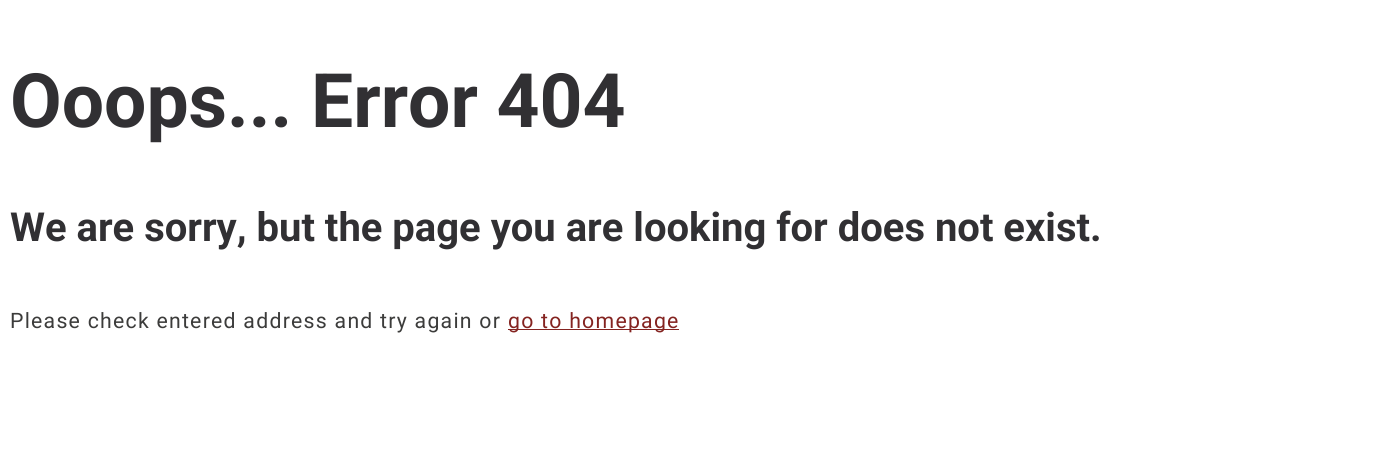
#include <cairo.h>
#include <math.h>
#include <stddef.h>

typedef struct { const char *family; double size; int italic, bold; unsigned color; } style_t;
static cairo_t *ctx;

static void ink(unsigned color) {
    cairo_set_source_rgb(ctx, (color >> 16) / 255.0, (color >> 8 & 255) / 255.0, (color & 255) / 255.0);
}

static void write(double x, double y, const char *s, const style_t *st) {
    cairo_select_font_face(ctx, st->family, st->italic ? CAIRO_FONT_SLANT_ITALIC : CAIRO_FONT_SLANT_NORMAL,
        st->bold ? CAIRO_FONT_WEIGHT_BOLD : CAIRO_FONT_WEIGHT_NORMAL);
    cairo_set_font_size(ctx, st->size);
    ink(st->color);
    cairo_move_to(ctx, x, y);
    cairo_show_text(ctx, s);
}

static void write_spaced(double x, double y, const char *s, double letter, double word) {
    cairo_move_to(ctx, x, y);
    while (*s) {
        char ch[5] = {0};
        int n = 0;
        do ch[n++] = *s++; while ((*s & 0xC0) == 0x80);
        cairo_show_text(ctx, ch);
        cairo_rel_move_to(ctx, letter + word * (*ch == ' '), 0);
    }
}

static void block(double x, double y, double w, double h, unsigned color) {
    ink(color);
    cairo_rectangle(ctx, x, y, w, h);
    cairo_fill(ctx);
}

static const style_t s1 = {"Roboto", 75, 0, 1, 0x313033};
static const style_t s2 = {"Roboto", 40, 0, 1, 0x313033};

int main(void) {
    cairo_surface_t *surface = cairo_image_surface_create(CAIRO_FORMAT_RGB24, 1373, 476);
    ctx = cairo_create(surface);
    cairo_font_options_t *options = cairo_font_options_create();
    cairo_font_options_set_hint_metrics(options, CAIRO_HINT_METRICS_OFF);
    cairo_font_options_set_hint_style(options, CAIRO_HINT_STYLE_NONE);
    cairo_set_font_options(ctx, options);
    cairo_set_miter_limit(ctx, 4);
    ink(0xffffff);
    cairo_paint(ctx);
    write(10, 127, "Ooops... Error 404", &s1);
    write(10, 241, "We are sorry, but the page you are looking for does not exist.", &s2);
    cairo_select_font_face(ctx, "Roboto", CAIRO_FONT_SLANT_NORMAL, CAIRO_FONT_WEIGHT_NORMAL);
    cairo_set_font_size(ctx, 21.25);
    ink(0x3c3c3b);
    write_spaced(10, 328, "Please check entered address and try again or", 1.25, 0);
    block(508, 329, 171, 1, 0x842320);
    write_spaced(508, 328, "go to homepage", 1.25, 0);
    cairo_surface_write_to_png(surface, "screenshot.png");
    cairo_font_options_destroy(options);
    cairo_destroy(ctx);
    cairo_surface_destroy(surface);
    return 0;
}
